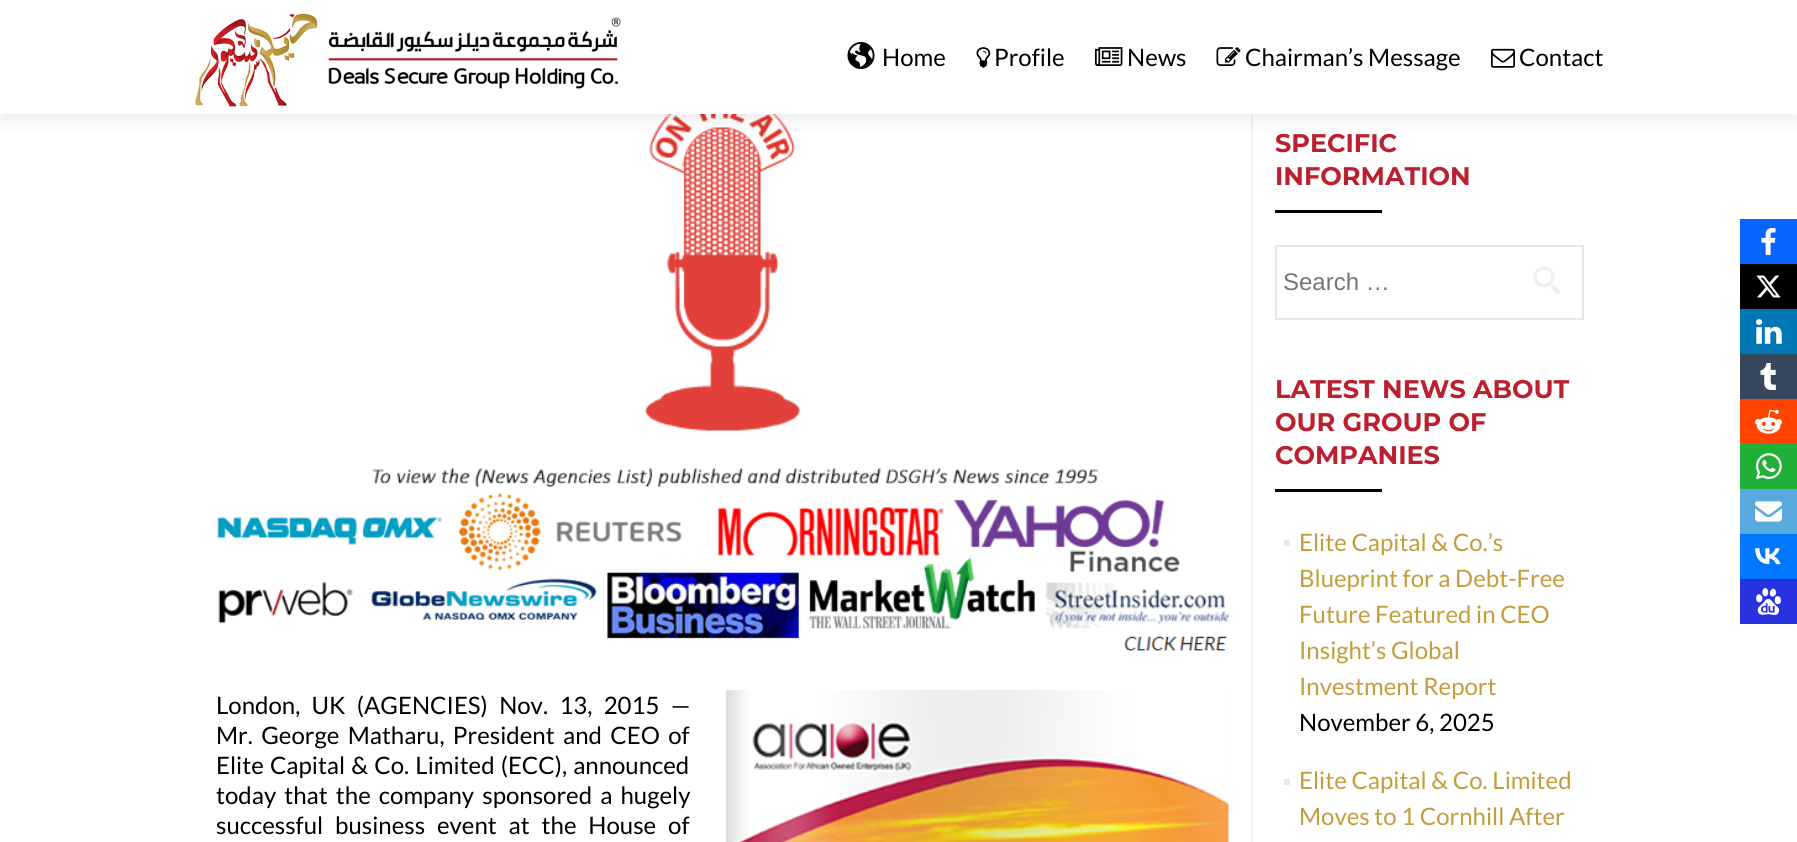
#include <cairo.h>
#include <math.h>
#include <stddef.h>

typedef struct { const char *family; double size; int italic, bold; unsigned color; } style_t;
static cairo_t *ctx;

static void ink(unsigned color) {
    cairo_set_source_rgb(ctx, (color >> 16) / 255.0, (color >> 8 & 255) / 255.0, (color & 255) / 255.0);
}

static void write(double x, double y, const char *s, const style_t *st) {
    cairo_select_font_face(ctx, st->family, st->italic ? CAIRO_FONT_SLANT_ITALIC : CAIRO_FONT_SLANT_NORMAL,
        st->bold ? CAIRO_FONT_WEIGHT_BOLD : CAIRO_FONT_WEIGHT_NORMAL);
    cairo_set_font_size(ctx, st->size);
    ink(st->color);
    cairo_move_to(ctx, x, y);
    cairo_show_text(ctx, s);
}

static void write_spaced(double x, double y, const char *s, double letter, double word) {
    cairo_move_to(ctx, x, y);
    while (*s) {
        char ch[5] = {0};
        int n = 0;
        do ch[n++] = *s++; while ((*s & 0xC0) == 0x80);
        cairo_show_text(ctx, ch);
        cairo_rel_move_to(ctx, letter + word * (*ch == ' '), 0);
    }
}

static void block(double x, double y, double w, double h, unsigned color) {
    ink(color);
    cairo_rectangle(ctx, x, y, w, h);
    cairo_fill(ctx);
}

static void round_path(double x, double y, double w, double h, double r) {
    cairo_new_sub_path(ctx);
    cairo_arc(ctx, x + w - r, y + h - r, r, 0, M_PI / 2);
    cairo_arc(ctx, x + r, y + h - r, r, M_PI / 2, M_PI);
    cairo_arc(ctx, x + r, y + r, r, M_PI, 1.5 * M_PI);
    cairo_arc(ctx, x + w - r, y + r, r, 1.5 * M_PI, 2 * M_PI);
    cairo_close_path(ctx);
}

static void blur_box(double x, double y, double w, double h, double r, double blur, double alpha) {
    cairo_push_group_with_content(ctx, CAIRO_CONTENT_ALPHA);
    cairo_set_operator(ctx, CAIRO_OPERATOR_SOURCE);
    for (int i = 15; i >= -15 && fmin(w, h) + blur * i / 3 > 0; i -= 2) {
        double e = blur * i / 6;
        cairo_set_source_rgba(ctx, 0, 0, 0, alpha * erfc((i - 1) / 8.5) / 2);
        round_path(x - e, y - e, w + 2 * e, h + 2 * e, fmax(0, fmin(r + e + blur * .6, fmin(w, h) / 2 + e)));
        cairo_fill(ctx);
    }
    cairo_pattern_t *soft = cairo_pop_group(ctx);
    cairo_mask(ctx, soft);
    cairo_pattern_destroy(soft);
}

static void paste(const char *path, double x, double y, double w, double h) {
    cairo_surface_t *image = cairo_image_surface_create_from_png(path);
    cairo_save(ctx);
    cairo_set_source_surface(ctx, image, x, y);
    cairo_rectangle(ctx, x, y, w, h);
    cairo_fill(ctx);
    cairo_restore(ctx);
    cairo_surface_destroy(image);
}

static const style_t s1 = {"Lato", 24, 0, 0, 0x000000};
static const style_t s2 = {"Montserrat Thin", 25.5, 0, 0, 0xbc2030};
static const style_t s3 = {"Liberation Sans", 24, 0, 0, 0x757575};
static const style_t s4 = {"Lato", 24, 0, 0, 0xc39c3b};

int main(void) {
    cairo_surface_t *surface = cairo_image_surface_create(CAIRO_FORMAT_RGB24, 1797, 842);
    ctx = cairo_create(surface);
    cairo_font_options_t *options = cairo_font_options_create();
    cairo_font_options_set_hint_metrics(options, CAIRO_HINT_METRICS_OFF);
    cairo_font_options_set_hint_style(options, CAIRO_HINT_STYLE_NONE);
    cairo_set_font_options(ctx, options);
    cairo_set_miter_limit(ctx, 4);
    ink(0xffffff);
    cairo_paint(ctx);
    paste("pic7.png", 644, 114, 156, 317);
    block(1251, 114, 2, 728, 0xf2f2f2);
    ink(0x323232);
    blur_box(0, 8, 1797, 114, 0, 8, 0.08);
    block(0, 0, 1797, 114, 0xffffff);
    paste("pic1.png", 195, 13, 426, 94);
    paste("pic2.png", 847, 42, 28, 27);
    write(882, 66, "Home", &s1);
    paste("pic3.png", 976, 47, 15, 21);
    write(994, 66, "Profile", &s1);
    paste("pic4.png", 1095, 47, 28, 19);
    write(1127, 66, "News", &s1);
    paste("pic5.png", 1216, 47, 25, 19);
    write(1245, 66, "Chairman’s Message", &s1);
    paste("pic6.png", 1491, 48, 24, 20);
    write(1519, 66, "Contact", &s1);
    paste("pic8.png", 217, 468, 1012, 183);
    write_spaced(216, 714, "London, UK (AGENCIES) Nov. 13, 2015 —", 0, 6.75);
    paste("pic9.png", 726, 690, 503, 152);
    write_spaced(216, 744, "Mr. George Matharu, President and CEO of", 0, 3.75);
    write_spaced(216, 774, "Elite Capital & Co. Limited (ECC), announced", 0, 1.5);
    write_spaced(216, 804, "today that the company sponsored a hugely", 0, 3.5);
    write_spaced(216, 834, "successful business event at the House of", 0, 7.25);
    write(1275, 152, "SPECIFIC", &s2);
    write(1275, 185, "INFORMATION", &s2);
    block(1275, 210, 107, 3, 0x000000);
    cairo_rectangle(ctx, 1276, 246, 307, 73);
    ink(0xe6e6e6);
    cairo_stroke(ctx);
    write(1283, 290, "Search …", &s3);
    paste("pic10.png", 1533, 265, 27, 29);
    write(1275, 398, "LATEST NEWS ABOUT", &s2);
    write(1275, 431, "OUR GROUP OF", &s2);
    write(1275, 464, "COMPANIES", &s2);
    block(1275, 489, 107, 3, 0x000000);
    block(1284, 540, 6, 6, 0xe9e9e9);
    write(1299, 551, "Elite Capital & Co.’s", &s4);
    write(1299, 587, "Blueprint for a Debt-Free", &s4);
    write(1299, 623, "Future Featured in CEO", &s4);
    write(1299, 659, "Insight’s Global", &s4);
    write(1299, 695, "Investment Report", &s4);
    write(1299, 731, "November 6, 2025", &s1);
    block(1284, 779, 6, 6, 0xe9e9e9);
    write(1299, 789, "Elite Capital & Co. Limited", &s4);
    write(1299, 825, "Moves to 1 Cornhill After", &s4);
    block(1740, 219, 57, 45, 0x0866ff);
    paste("pic11.png", 1761, 228, 15, 27);
    block(1740, 264, 57, 45, 0x000000);
    paste("pic12.png", 1756, 275, 25, 23);
    block(1740, 309, 57, 45, 0x0077b5);
    paste("pic13.png", 1756, 319, 26, 25);
    block(1740, 354, 57, 45, 0x36465d);
    paste("pic14.png", 1760, 363, 16, 27);
    block(1740, 399, 57, 45, 0xff4500);
    paste("pic15.png", 1755, 409, 27, 25);
    block(1740, 444, 57, 45, 0x20b038);
    paste("pic16.png", 1756, 453, 26, 27);
    block(1740, 489, 57, 45, 0x58a9de);
    paste("pic17.png", 1755, 501, 27, 21);
    block(1740, 534, 57, 45, 0x0077ff);
    paste("pic18.png", 1755, 548, 26, 17);
    block(1740, 579, 57, 45, 0x2932e1);
    paste("pic19.png", 1756, 588, 25, 27);
    cairo_surface_write_to_png(surface, "screenshot.png");
    cairo_font_options_destroy(options);
    cairo_destroy(ctx);
    cairo_surface_destroy(surface);
    return 0;
}
